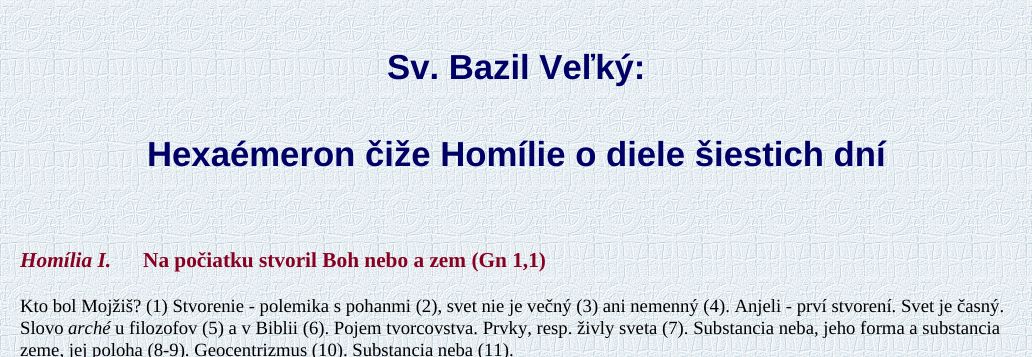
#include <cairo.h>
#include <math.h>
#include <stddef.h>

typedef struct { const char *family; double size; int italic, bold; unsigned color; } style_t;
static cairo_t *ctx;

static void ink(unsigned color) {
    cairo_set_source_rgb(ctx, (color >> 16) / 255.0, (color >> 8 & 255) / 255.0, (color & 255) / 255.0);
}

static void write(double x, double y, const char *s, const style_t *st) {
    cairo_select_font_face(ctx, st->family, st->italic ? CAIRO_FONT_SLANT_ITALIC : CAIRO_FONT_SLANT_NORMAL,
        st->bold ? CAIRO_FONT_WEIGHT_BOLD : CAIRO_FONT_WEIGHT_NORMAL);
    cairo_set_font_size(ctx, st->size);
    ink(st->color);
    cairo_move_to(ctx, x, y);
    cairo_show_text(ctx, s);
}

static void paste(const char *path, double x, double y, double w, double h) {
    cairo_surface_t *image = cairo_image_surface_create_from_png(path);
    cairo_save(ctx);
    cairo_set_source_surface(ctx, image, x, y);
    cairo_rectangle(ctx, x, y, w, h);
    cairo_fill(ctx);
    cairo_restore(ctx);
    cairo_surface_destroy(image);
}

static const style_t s1 = {"Liberation Sans", 34.7, 0, 1, 0x000066};
static const style_t s2 = {"Liberation Serif", 21.3, 1, 1, 0x880022};
static const style_t s3 = {"Liberation Serif", 21.3, 0, 1, 0x880022};
static const style_t s4 = {"Liberation Serif", 18.67, 0, 0, 0x000000};
static const style_t s5 = {"Liberation Serif", 18.67, 1, 0, 0x000000};

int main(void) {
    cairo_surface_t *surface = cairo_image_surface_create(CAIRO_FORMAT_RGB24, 1032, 357);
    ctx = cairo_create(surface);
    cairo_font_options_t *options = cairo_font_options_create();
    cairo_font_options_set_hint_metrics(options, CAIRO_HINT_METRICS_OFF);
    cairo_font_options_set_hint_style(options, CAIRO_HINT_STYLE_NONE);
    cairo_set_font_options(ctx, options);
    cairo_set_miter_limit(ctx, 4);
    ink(0xffffff);
    cairo_paint(ctx);
    paste("pic1.png", 0, 0, 1032, 357);
    write(387, 79, "Sv. Bazil Veľký:", &s1);
    write(147, 166, "Hexaémeron čiže Homílie o diele šiestich dní", &s1);
    write(20, 267, "Homília I.", &s2);
    write(143, 267, "Na počiatku stvoril Boh nebo a zem (Gn 1,1)", &s3);
    write(20, 312, "Kto bol Mojžiš? (1) Stvorenie - polemika s pohanmi (2), svet nie je večný (3) ani nemenný (4). Anjeli - prví stvorení. Svet je časný.", &s4);
    write(20, 334, "Slovo", &s4);
    write(68, 334, "arché", &s5);
    write(115, 334, "u filozofov (5) a v Biblii (6). Pojem tvorcovstva. Prvky, resp. živly sveta (7). Substancia neba, jeho forma a substancia", &s4);
    write(20, 356, "zeme, jej poloha (8-9). Geocentrizmus (10). Substancia neba (11).", &s4);
    cairo_surface_write_to_png(surface, "screenshot.png");
    cairo_font_options_destroy(options);
    cairo_destroy(ctx);
    cairo_surface_destroy(surface);
    return 0;
}
